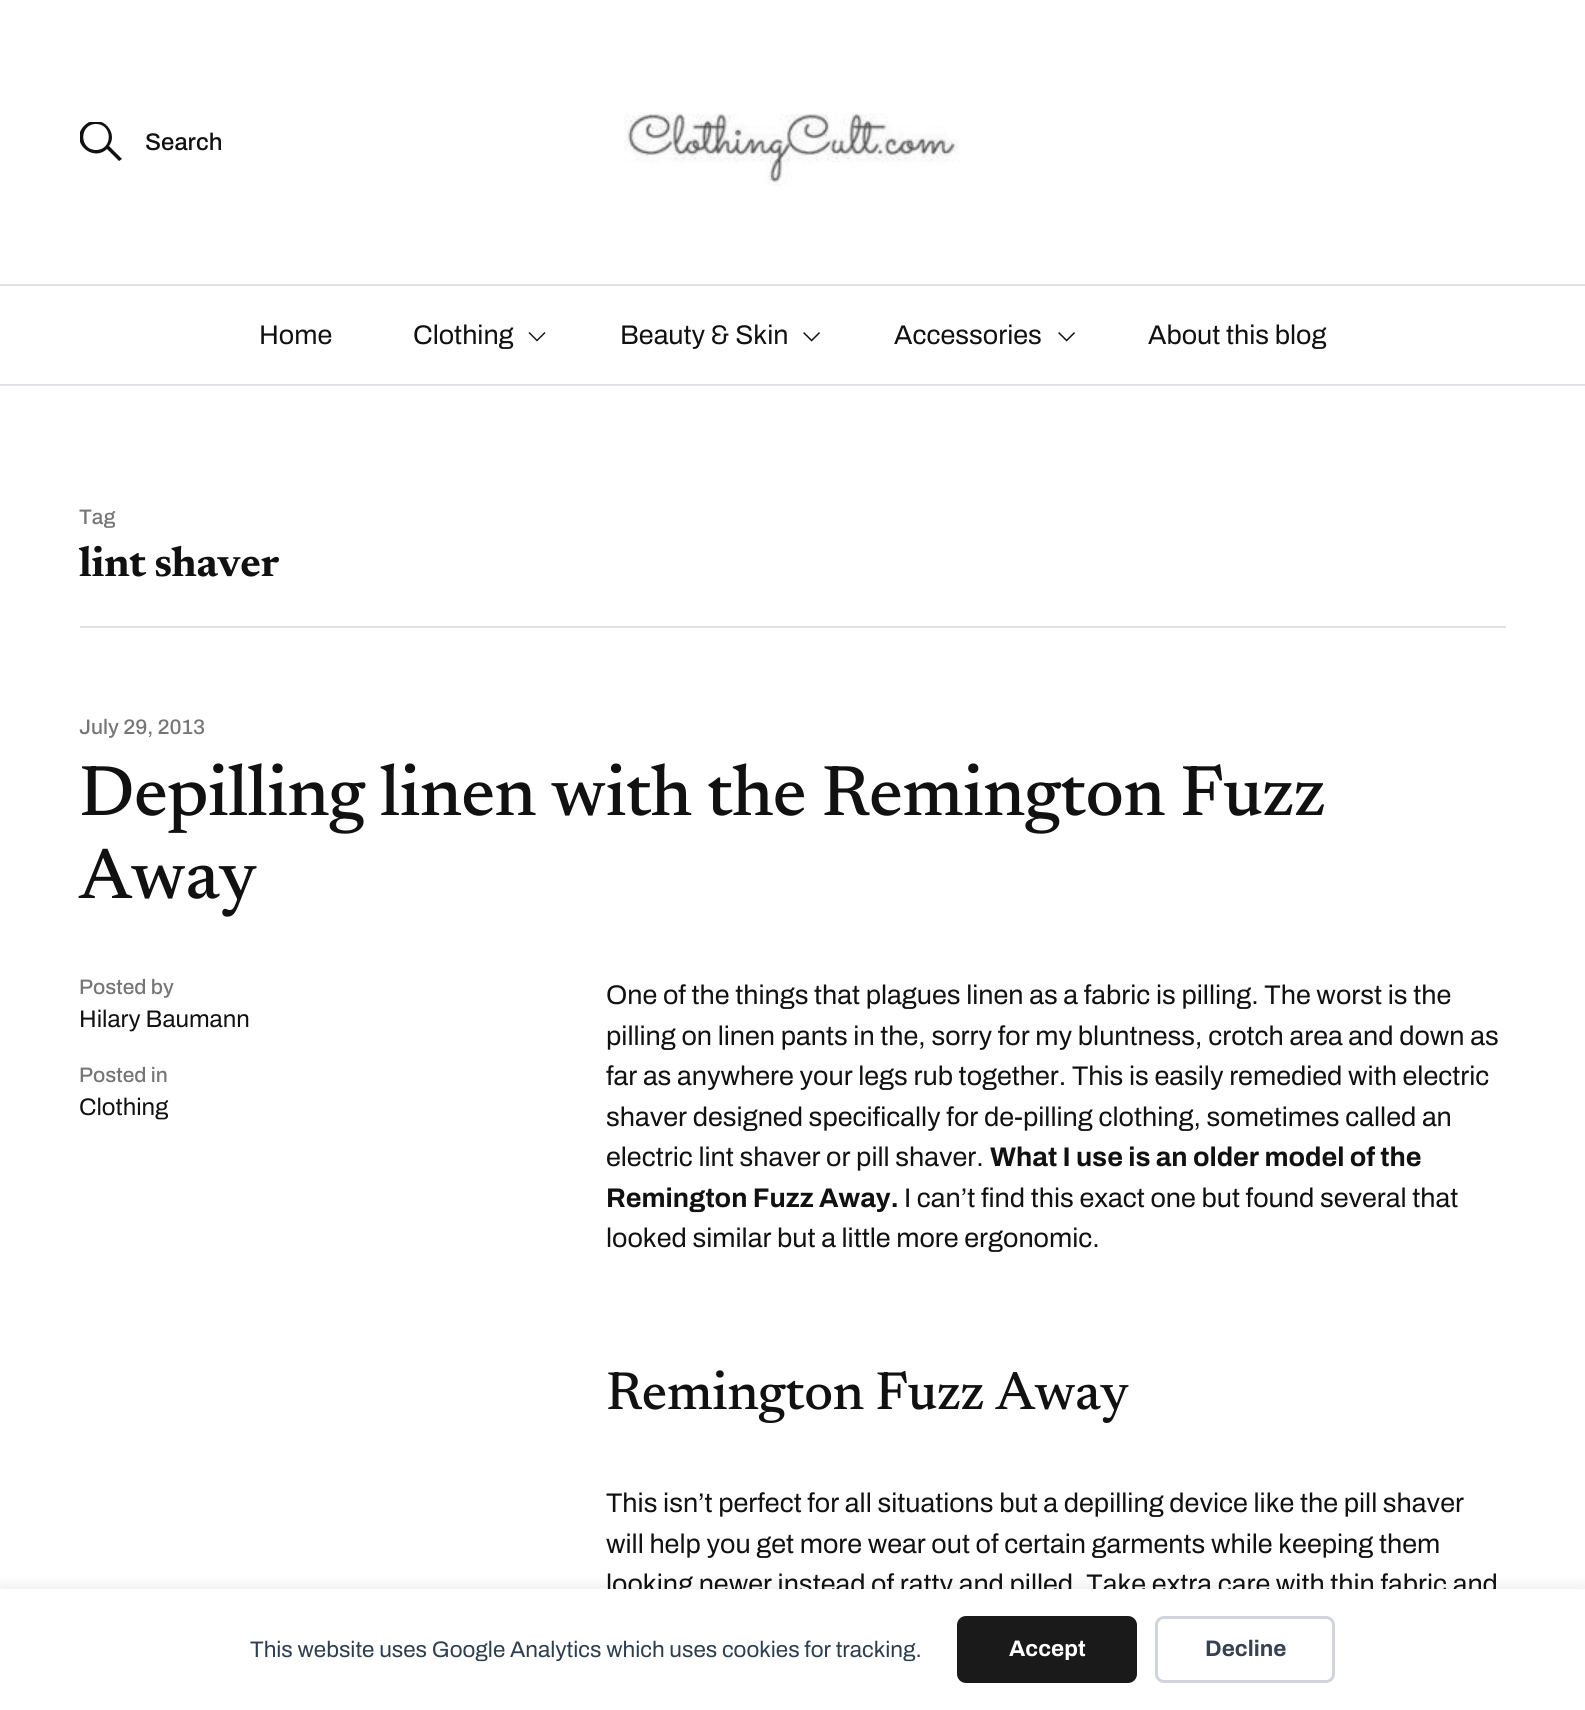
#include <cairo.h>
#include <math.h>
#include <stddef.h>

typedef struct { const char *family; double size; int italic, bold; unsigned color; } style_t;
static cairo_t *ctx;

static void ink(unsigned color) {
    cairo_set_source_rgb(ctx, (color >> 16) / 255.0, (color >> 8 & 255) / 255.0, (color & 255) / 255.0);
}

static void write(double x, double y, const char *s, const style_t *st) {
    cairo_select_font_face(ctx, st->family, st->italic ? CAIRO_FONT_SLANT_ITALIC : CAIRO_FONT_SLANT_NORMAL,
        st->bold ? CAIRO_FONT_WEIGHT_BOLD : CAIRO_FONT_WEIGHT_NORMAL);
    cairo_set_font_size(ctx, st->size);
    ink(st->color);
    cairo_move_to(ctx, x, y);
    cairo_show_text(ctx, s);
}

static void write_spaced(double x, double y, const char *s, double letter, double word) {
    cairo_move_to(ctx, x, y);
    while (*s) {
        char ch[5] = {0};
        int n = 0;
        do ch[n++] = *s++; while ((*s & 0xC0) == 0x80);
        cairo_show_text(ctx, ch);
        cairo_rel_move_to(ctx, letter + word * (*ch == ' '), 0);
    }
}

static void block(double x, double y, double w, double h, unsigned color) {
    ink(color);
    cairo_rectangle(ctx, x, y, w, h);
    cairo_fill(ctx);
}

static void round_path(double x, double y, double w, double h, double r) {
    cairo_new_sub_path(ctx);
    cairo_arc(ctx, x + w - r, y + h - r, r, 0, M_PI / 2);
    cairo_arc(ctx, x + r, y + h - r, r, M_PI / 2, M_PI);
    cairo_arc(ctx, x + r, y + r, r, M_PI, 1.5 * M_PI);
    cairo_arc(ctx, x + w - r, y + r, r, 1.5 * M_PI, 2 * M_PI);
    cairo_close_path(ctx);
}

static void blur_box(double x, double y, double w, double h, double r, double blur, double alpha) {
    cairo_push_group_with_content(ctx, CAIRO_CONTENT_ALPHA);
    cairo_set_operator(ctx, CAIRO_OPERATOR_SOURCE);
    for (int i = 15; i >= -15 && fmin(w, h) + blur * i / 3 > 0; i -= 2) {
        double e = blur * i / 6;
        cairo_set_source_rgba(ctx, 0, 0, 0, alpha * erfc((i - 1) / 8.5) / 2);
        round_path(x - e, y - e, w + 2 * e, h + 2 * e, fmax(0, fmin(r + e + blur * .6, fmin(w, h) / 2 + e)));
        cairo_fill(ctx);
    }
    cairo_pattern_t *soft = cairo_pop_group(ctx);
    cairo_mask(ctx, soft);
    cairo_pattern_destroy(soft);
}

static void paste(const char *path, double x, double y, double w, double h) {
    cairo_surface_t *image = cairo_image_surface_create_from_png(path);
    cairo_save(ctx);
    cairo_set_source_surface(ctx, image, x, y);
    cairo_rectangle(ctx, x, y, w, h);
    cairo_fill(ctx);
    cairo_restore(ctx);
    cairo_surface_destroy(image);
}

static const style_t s1 = {"Archivo SemiBold", 24, 0, 0, 0x111111};
static const style_t s2 = {"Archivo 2 SemiBold", 27, 0, 0, 0x111111};
static const style_t s3 = {"Archivo SemiBold", 21, 0, 0, 0x767676};
static const style_t s4 = {"Archivo 2 SemiBold", 24, 0, 0, 0x111111};
static const style_t s5 = {"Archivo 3 SemiBold", 27, 0, 0, 0x111111};
static const style_t s6 = {"Archivo 2 SemiBold", 22.5, 0, 0, 0x2c3e50};
static const style_t s7 = {"Archivo 3 SemiBold", 22.5, 0, 0, 0xffffff};
static const style_t s8 = {"Archivo 3 SemiBold", 22.5, 0, 0, 0x374151};

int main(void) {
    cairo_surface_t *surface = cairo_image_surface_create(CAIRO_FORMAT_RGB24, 1585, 1710);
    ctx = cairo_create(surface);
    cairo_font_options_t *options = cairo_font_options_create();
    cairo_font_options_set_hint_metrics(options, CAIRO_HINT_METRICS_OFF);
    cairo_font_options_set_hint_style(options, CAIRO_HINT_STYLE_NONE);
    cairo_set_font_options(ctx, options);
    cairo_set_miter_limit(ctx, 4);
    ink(0xffffff);
    cairo_paint(ctx);
    block(0, 384, 1585, 2, 0xe1e1e5);
    cairo_save(ctx);
    cairo_rectangle(ctx, 80, 122, 43, 40);
    cairo_clip(ctx);
    ink(0x111111);
    cairo_set_fill_rule(ctx, CAIRO_FILL_RULE_EVEN_ODD);
    cairo_new_path(ctx);
    cairo_move_to(ctx, 109, 146);
    cairo_line_to(ctx, 122, 159);
    cairo_line_to(ctx, 119, 161);
    cairo_line_to(ctx, 107, 149);
    cairo_curve_to(ctx, 92, 163, 69, 141, 84, 126);
    cairo_curve_to(ctx, 98, 111, 120, 131, 109, 146);
    cairo_close_path(ctx);
    cairo_move_to(ctx, 96, 150);
    cairo_curve_to(ctx, 113, 150, 113, 124, 96, 124);
    cairo_curve_to(ctx, 79, 124, 79, 150, 96, 150);
    cairo_close_path(ctx);
    cairo_fill(ctx);
    cairo_restore(ctx);
    write(145, 150, "Search", &s1);
    paste("pic1.png", 624, 112, 336, 74);
    block(0, 284, 1585, 2, 0xe1e1e5);
    write(259, 344, "Home", &s2);
    write(413, 344, "Clothing", &s2);
    cairo_set_fill_rule(ctx, CAIRO_FILL_RULE_EVEN_ODD);
    cairo_new_path(ctx);
    cairo_move_to(ctx, 537, 339.5);
    cairo_line_to(ctx, 544.5, 332);
    cairo_line_to(ctx, 545.5, 333);
    cairo_line_to(ctx, 537, 341.5);
    cairo_line_to(ctx, 528.5, 333);
    cairo_line_to(ctx, 529.5, 332);
    cairo_close_path(ctx);
    cairo_fill(ctx);
    write(620, 344, "Beauty & Skin", &s2);
    paste("pic2.png", 803, 332, 17, 10);
    write(894, 344, "Accessories", &s2);
    paste("pic2.png", 1058, 332, 17, 10);
    write(1148, 344, "About this blog", &s2);
    block(80, 626, 1426, 2, 0xe1e1e5);
    write(79, 524, "Tag", &s3);
    cairo_select_font_face(ctx, "Newsreader", CAIRO_FONT_SLANT_NORMAL, CAIRO_FONT_WEIGHT_BOLD);
    cairo_set_font_size(ctx, 42);
    ink(0x111111);
    write_spaced(79, 576, "lint shaver", -0.5, 0);
    write(79, 734, "July 29, 2013", &s3);
    cairo_select_font_face(ctx, "Newsreader Medium", CAIRO_FONT_SLANT_NORMAL, CAIRO_FONT_WEIGHT_NORMAL);
    cairo_set_font_size(ctx, 72);
    ink(0x111111);
    write_spaced(79, 815, "Depilling linen with the Remington Fuzz", -0.7, 0);
    write_spaced(79, 898, "Away", -0.7, 0);
    write(79, 994, "Posted by", &s3);
    write(79, 1027, "Hilary Baumann", &s4);
    write(79, 1082, "Posted in", &s3);
    write(79, 1115, "Clothing", &s4);
    write(606, 1004, "One of the things that plagues linen as a fabric is pilling. The worst is the", &s2);
    write(606, 1045, "pilling on linen pants in the, sorry for my bluntness, crotch area and down as", &s2);
    write(606, 1085, "far as anywhere your legs rub together. This is easily remedied with electric", &s2);
    write(606, 1126, "shaver designed specifically for de-pilling clothing, sometimes called an", &s2);
    write(606, 1166, "electric lint shaver or pill shaver.", &s2);
    write(990, 1166, "What I use is an older model of the", &s5);
    write(606, 1207, "Remington Fuzz Away.", &s5);
    write(904, 1207, "I can’t find this exact one but found several that", &s2);
    write(606, 1247, "looked similar but a little more ergonomic.", &s2);
    cairo_select_font_face(ctx, "Newsreader Medium", CAIRO_FONT_SLANT_NORMAL, CAIRO_FONT_WEIGHT_NORMAL);
    cairo_set_font_size(ctx, 54);
    write_spaced(606, 1409, "Remington Fuzz Away", -0.5, 0);
    write(606, 1512, "This isn’t perfect for all situations but a depilling device like the pill shaver", &s2);
    write(606, 1553, "will help you get more wear out of certain garments while keeping them", &s2);
    write(606, 1593, "looking newer instead of ratty and pilled. Take extra care with thin fabric and", &s2);
    ink(0x000000);
    blur_box(0, 1586, 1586, 121, 0, 7.5, 0.08);
    block(0, 1589, 1585, 121, 0xffffff);
    write(250, 1657, "This website uses Google Analytics which uses cookies for tracking.", &s6);
    ink(0x1a1a1a);
    round_path(957, 1616, 180, 67, 9);
    cairo_fill(ctx);
    write(1009, 1656, "Accept", &s7);
    round_path(1156.5, 1617.5, 177, 64, 7.5);
    ink(0xd1d5db);
    cairo_set_line_width(ctx, 3);
    cairo_stroke(ctx);
    write(1205, 1656, "Decline", &s8);
    cairo_surface_write_to_png(surface, "screenshot.png");
    cairo_font_options_destroy(options);
    cairo_destroy(ctx);
    cairo_surface_destroy(surface);
    return 0;
}
